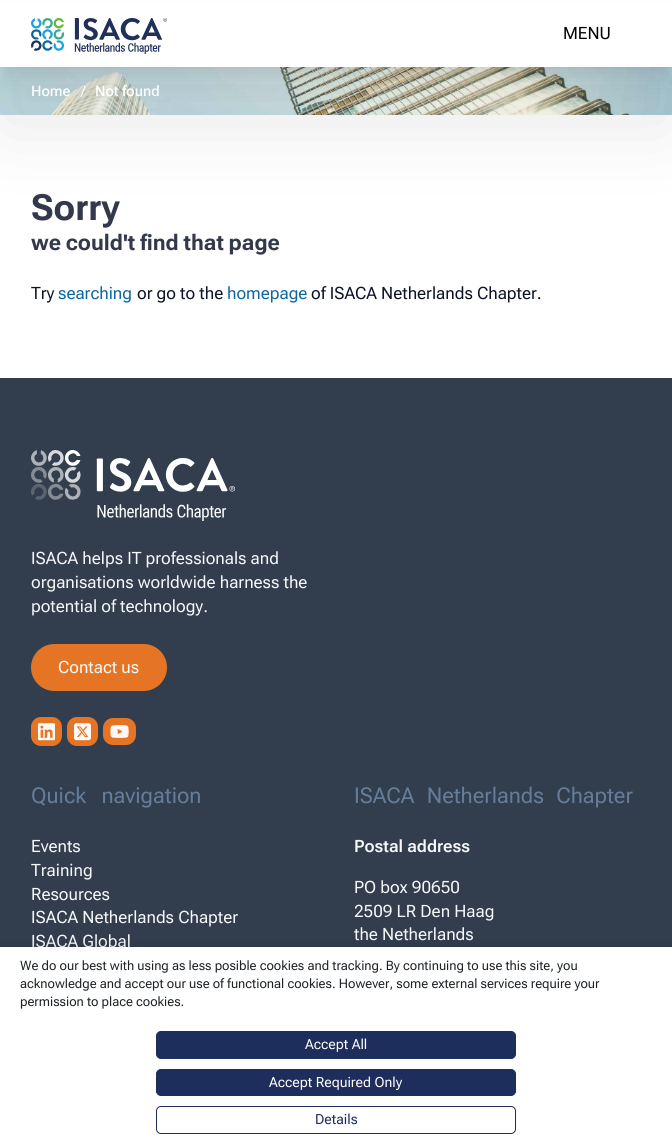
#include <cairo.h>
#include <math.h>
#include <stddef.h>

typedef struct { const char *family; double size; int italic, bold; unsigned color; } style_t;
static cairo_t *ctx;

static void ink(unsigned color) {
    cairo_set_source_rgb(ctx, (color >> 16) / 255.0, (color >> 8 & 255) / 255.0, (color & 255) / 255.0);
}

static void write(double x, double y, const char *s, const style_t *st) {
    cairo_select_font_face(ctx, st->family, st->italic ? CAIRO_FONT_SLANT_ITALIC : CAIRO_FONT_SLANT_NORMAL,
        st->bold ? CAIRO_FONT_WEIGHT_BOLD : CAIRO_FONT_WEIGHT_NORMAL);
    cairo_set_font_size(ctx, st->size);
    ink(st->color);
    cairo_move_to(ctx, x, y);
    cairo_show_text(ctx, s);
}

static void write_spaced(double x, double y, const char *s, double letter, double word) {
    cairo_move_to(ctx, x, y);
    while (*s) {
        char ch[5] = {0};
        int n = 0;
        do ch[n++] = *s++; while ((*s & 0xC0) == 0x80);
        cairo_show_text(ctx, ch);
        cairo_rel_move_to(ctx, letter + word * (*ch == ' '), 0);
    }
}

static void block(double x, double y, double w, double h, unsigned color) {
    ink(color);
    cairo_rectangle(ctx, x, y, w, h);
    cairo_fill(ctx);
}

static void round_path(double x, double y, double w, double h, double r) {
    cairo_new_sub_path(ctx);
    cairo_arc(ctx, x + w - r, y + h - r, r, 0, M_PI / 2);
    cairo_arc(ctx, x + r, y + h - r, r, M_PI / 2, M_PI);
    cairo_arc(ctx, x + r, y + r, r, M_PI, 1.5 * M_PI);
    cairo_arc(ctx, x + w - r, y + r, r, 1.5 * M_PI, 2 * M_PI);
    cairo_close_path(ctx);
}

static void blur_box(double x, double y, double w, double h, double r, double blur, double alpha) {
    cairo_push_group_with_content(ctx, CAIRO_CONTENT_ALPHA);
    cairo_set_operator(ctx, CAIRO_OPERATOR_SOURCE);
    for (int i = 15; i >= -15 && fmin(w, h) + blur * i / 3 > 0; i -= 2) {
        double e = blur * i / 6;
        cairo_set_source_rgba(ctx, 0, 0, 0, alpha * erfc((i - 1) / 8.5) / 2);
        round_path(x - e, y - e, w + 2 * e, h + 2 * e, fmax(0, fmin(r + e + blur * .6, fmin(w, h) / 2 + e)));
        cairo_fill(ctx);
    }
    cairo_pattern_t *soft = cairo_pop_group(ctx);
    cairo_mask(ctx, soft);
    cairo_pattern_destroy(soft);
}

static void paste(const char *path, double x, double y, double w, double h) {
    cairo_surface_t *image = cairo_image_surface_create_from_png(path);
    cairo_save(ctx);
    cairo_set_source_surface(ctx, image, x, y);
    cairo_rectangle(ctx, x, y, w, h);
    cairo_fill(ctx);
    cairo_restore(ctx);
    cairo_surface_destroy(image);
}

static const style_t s1 = {"Roboto Flex", 17, 0, 0, 0x000000};
static const style_t s2 = {"Roboto Flex Medium", 14.5, 0, 0, 0xffffff};
static const style_t s3 = {"Roboto Flex", 14.5, 0, 0, 0xffffff};
static const style_t s4 = {"Roboto Flex", 36, 0, 1, 0x33394d};
static const style_t s5 = {"Roboto Flex", 17, 0, 0, 0x0c1327};
static const style_t s6 = {"Roboto Flex", 17, 0, 0, 0x0e68a0};
static const style_t s7 = {"Roboto Flex", 17, 0, 0, 0xf6f7f9};
static const style_t s8 = {"Roboto Flex", 17, 0, 0, 0xfef9f6};
static const style_t s9 = {"Roboto Flex SemiBold", 17, 0, 0, 0xf6f7f9};
static const style_t s10 = {"Roboto Flex", 13, 0, 0, 0x1d2327};
static const style_t s11 = {"Roboto Flex", 14, 0, 0, 0xffffff};
static const style_t s12 = {"Roboto Flex", 14, 0, 0, 0x1d2d5c};

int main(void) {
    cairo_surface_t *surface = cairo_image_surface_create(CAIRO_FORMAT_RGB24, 672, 1144);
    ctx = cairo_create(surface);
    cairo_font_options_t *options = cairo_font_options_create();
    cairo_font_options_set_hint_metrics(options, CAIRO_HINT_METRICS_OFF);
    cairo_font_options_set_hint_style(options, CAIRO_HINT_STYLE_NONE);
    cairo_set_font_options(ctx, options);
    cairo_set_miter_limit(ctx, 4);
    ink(0xffffff);
    cairo_paint(ctx);
    paste("pic2.png", 0, 67, 672, 48);
    ink(0x000000);
    blur_box(5, 65, 662, 57, 0, 40, 0.1);
    blur_box(5, 23, 662, 57, 0, 12, 0.08);
    blur_box(5, 13, 662, 57, 0, 5, 0.06);
    block(0, 2, 672, 65, 0xffffff);
    paste("pic1.png", 31, 18, 136, 36);
    write(563, 39, "MENU", &s1);
    write(31, 96, "Home", &s2);
    write(81, 96, "/", &s3);
    write(95, 96, "Not found", &s2);
    write(31, 220, "Sorry", &s4);
    cairo_set_font_size(ctx, 21.75);
    write_spaced(31, 250, "we could't find that page", 0, -0.5);
    write(31, 299, "Try", &s5);
    write(58, 299, "searching", &s6);
    write(137, 299, "or go to the", &s5);
    write(227, 299, "homepage", &s6);
    write(311, 299, "of ISACA Netherlands Chapter.", &s5);
    block(0, 378, 672, 569, 0x323e4d);
    paste("pic3.png", 31, 450, 204, 71);
    write(31, 564, "ISACA helps IT professionals and", &s7);
    write(31, 588, "organisations worldwide harness the", &s7);
    write(31, 612, "potential of technology.", &s7);
    ink(0xe57524);
    round_path(32, 645, 134, 45, 22.5);
    cairo_fill_preserve(ctx);
    cairo_stroke(ctx);
    write(58, 673, "Contact us", &s8);
    ink(0xe57524);
    round_path(31, 717, 31, 29, 10);
    cairo_fill(ctx);
    paste("pic4.png", 38, 723, 17, 18);
    round_path(67, 717, 31, 29, 10);
    cairo_fill(ctx);
    paste("pic5.png", 74, 723, 17, 18);
    round_path(103, 718, 33, 27, 10);
    cairo_fill(ctx);
    paste("pic6.png", 110, 725, 19, 13);
    cairo_set_font_size(ctx, 21.75);
    ink(0x657d9a);
    write_spaced(31, 803, "Quick navigation", 0, 10);
    write(31, 852, "Events", &s7);
    write(31, 876, "Training", &s7);
    write(31, 900, "Resources", &s7);
    write(31, 923, "ISACA Netherlands Chapter", &s7);
    write(31, 947, "ISACA Global", &s7);
    cairo_set_font_size(ctx, 21.75);
    ink(0x657d9a);
    write_spaced(354, 803, "ISACA Netherlands Chapter", 0, 7);
    write(354, 852, "Postal address", &s9);
    write(354, 893, "PO box 90650", &s7);
    write(354, 917, "2509 LR Den Haag", &s7);
    write(354, 940, "the Netherlands", &s7);
    ink(0x000000);
    blur_box(0, 947, 672, 197, 0, 5, 0.2);
    block(0, 947, 672, 197, 0xffffff);
    write(20, 970, "We do our best with using as less posible cookies and tracking. By continuing to use this site, you", &s10);
    write(20, 988, "acknowledge and accept our use of functional cookies. However, some external services require your", &s10);
    write(20, 1006, "permission to place cookies.", &s10);
    ink(0x1d2d5c);
    round_path(156.5, 1031.5, 359, 27, 4.5);
    cairo_fill_preserve(ctx);
    cairo_set_line_width(ctx, 1);
    cairo_stroke(ctx);
    write(305, 1049, "Accept All", &s11);
    ink(0x1d2d5c);
    round_path(156.5, 1069.5, 359, 26, 4.5);
    cairo_fill_preserve(ctx);
    cairo_stroke(ctx);
    write(269, 1087, "Accept Required Only", &s11);
    round_path(156.5, 1106.5, 359, 27, 4.5);
    ink(0x1d2d5c);
    cairo_stroke(ctx);
    write(315, 1124, "Details", &s12);
    cairo_surface_write_to_png(surface, "screenshot.png");
    cairo_font_options_destroy(options);
    cairo_destroy(ctx);
    cairo_surface_destroy(surface);
    return 0;
}
